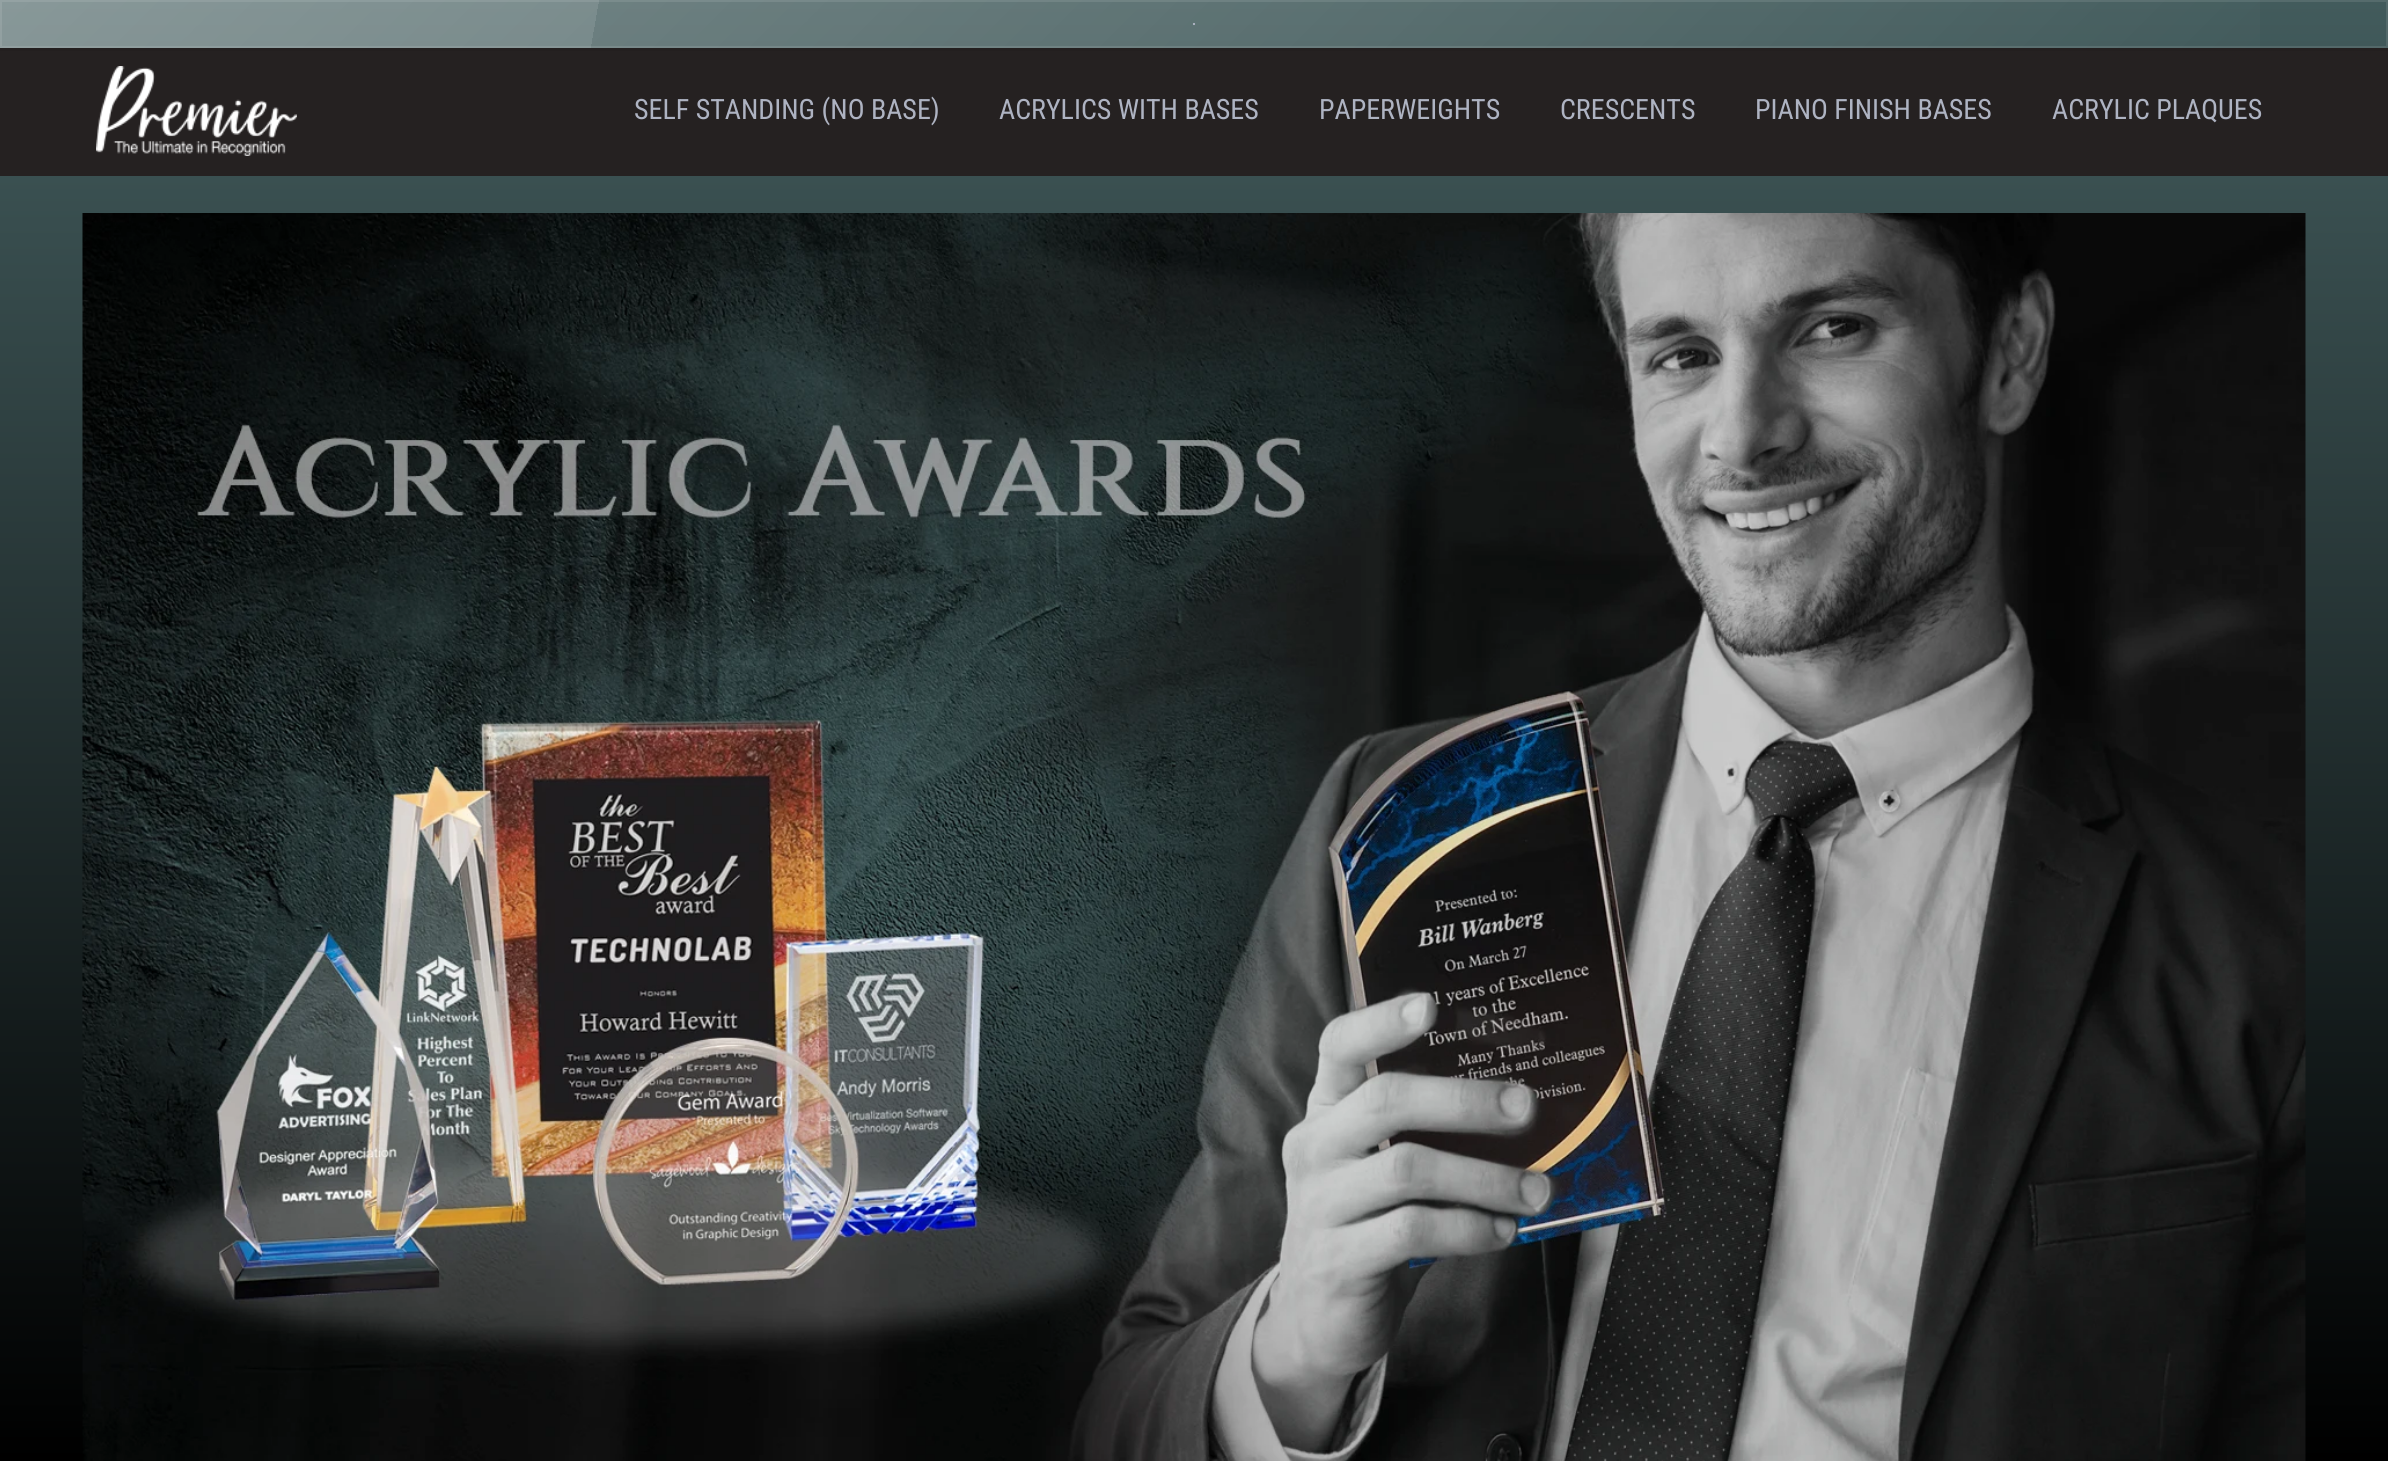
#include <cairo.h>
#include <math.h>
#include <stddef.h>

typedef struct { const char *family; double size; int italic, bold; unsigned color; } style_t;
static cairo_t *ctx;

static void ink(unsigned color) {
    cairo_set_source_rgb(ctx, (color >> 16) / 255.0, (color >> 8 & 255) / 255.0, (color & 255) / 255.0);
}

static void write(double x, double y, const char *s, const style_t *st) {
    cairo_select_font_face(ctx, st->family, st->italic ? CAIRO_FONT_SLANT_ITALIC : CAIRO_FONT_SLANT_NORMAL,
        st->bold ? CAIRO_FONT_WEIGHT_BOLD : CAIRO_FONT_WEIGHT_NORMAL);
    cairo_set_font_size(ctx, st->size);
    ink(st->color);
    cairo_move_to(ctx, x, y);
    cairo_show_text(ctx, s);
}

static void block(double x, double y, double w, double h, unsigned color) {
    ink(color);
    cairo_rectangle(ctx, x, y, w, h);
    cairo_fill(ctx);
}

static void paste(const char *path, double x, double y, double w, double h) {
    cairo_surface_t *image = cairo_image_surface_create_from_png(path);
    cairo_save(ctx);
    cairo_set_source_surface(ctx, image, x, y);
    cairo_rectangle(ctx, x, y, w, h);
    cairo_fill(ctx);
    cairo_restore(ctx);
    cairo_surface_destroy(image);
}

static const style_t s1 = {"Roboto Condensed", 28, 0, 0, 0xaeb3c2};

int main(void) {
    cairo_surface_t *surface = cairo_image_surface_create(CAIRO_FORMAT_RGB24, 2388, 1461);
    ctx = cairo_create(surface);
    cairo_font_options_t *options = cairo_font_options_create();
    cairo_font_options_set_hint_metrics(options, CAIRO_HINT_METRICS_OFF);
    cairo_font_options_set_hint_style(options, CAIRO_HINT_STYLE_NONE);
    cairo_set_font_options(ctx, options);
    cairo_set_miter_limit(ctx, 4);
    cairo_pattern_t *gradient;
    ink(0xffffff);
    cairo_paint(ctx);
    gradient = cairo_pattern_create_linear(1194, 1461, 1194, 0);
    cairo_pattern_add_color_stop_rgba(gradient, 0, 0, 0, 0, 1);
    cairo_pattern_add_color_stop_rgba(gradient, 1, 0.259, 0.357, 0.361, 1);
    cairo_set_source(ctx, gradient);
    cairo_pattern_destroy(gradient);
    cairo_rectangle(ctx, 0, 0, 2388, 1461);
    cairo_fill(ctx);
    cairo_rectangle(ctx, -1.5, -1.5, 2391, 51);
    ink(0x231f1f);
    cairo_set_line_width(ctx, 3);
    cairo_stroke(ctx);
    gradient = cairo_pattern_create_linear(32, -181, 2356, 229);
    cairo_pattern_add_color_stop_rgba(gradient, 0.25, 1, 1, 1, 0.1);
    cairo_pattern_add_color_stop_rgba(gradient, 0.25, 1, 1, 1, 0);
    cairo_set_source(ctx, gradient);
    cairo_pattern_destroy(gradient);
    cairo_rectangle(ctx, 0, 0, 599, 48);
    cairo_fill(ctx);
    gradient = cairo_pattern_create_linear(585, -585, 1803, 633);
    cairo_pattern_add_color_stop_rgba(gradient, 0, 1, 1, 1, 0.3);
    cairo_pattern_add_color_stop_rgba(gradient, 1, 1, 1, 1, 0);
    cairo_set_source(ctx, gradient);
    cairo_pattern_destroy(gradient);
    cairo_rectangle(ctx, 0, 0, 2260, 48);
    cairo_fill(ctx);
    cairo_rectangle(ctx, 1, 1, 2386, 46);
    cairo_set_source_rgba(ctx, 1, 1, 1, 0.1);
    cairo_set_line_width(ctx, 2);
    cairo_stroke(ctx);
    cairo_arc(ctx, 1194, 24, 0.5, 0, 2 * M_PI);
    ink(0xaeb3c2);
    cairo_set_line_width(ctx, 1.1);
    cairo_stroke(ctx);
    cairo_arc(ctx, 1194, 24, 0.5, 0, 2 * M_PI);
    cairo_stroke(ctx);
    block(0, 51, 2388, 125, 0x252121);
    paste("pic1.png", 96, 66, 201, 90);
    write(634, 119, "SELF STANDING (NO BASE)", &s1);
    write(999, 119, "ACRYLICS WITH BASES", &s1);
    write(1319, 119, "PAPERWEIGHTS", &s1);
    write(1560, 119, "CRESCENTS", &s1);
    write(1755, 119, "PIANO FINISH BASES", &s1);
    write(2052, 119, "ACRYLIC PLAQUES", &s1);
    paste("pic2.png", 82, 213, 2224, 1248);
    cairo_surface_write_to_png(surface, "screenshot.png");
    cairo_font_options_destroy(options);
    cairo_destroy(ctx);
    cairo_surface_destroy(surface);
    return 0;
}
